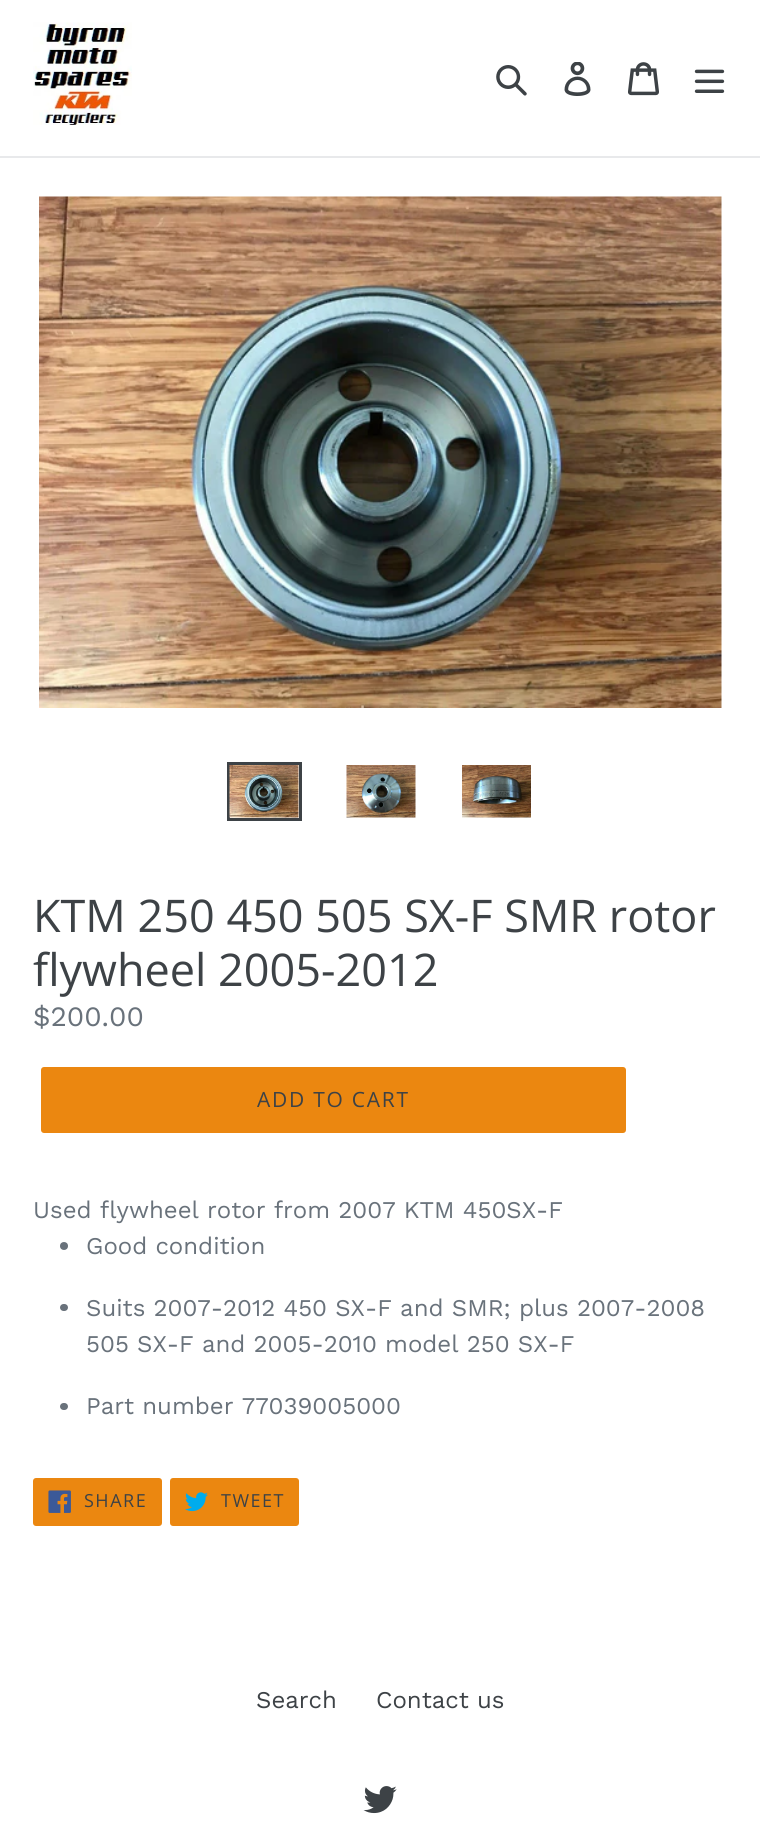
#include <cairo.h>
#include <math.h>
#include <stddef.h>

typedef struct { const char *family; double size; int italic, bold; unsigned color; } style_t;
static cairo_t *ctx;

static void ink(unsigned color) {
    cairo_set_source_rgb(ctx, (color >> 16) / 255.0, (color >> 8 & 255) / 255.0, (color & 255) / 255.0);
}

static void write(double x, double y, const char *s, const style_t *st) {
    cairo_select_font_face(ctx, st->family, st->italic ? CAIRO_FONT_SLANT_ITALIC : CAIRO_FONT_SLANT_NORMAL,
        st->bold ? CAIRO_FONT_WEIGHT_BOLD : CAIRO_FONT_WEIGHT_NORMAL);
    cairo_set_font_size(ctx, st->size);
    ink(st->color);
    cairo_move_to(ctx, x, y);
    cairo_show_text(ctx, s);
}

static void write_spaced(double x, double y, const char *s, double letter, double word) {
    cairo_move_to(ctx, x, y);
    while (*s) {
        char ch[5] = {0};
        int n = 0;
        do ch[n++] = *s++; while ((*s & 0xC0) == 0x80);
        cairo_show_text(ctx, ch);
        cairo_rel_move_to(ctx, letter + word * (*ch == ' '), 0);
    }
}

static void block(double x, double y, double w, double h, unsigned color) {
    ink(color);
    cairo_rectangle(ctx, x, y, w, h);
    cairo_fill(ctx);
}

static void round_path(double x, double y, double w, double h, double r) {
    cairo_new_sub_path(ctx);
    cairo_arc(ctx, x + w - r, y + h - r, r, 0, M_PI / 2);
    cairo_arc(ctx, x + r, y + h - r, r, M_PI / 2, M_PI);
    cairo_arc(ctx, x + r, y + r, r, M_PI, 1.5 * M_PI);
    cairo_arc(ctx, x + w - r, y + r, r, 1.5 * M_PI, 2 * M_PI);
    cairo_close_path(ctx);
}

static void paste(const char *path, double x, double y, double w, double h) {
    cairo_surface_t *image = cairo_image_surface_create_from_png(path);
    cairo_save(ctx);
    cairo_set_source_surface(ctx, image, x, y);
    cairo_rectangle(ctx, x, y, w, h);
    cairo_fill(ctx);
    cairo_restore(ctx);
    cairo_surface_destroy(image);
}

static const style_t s1 = {"Open Sans", 45, 0, 0, 0x3d4246};
static const style_t s2 = {"Work Sans", 28, 0, 0, 0x69727b};
static const style_t s3 = {"Work Sans", 24, 0, 0, 0x69727b};
static const style_t s4 = {"Work Sans", 24, 0, 0, 0x3d4246};

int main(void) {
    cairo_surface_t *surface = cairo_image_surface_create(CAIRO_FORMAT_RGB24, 760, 1841);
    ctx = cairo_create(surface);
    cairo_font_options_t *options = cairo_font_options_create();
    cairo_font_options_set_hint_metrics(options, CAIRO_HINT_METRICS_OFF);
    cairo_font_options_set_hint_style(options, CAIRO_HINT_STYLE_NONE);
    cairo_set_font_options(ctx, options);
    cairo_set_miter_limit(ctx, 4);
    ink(0xffffff);
    cairo_paint(ctx);
    block(0, 156, 760, 2, 0xe8e9eb);
    paste("pic1.png", 33, 22, 99, 103);
    paste("pic2.png", 496, 65, 31, 31);
    paste("pic3.png", 564, 62, 27, 34);
    paste("pic4.png", 628, 62, 31, 34);
    paste("pic5.png", 694, 69, 31, 24);
    paste("pic6.png", 39, 196, 683, 512);
    cairo_rectangle(ctx, 228.5, 763.5, 72, 56);
    ink(0x3d4246);
    cairo_set_line_width(ctx, 3);
    cairo_stroke(ctx);
    paste("pic7.png", 229, 765, 70, 53);
    paste("pic8.png", 346, 765, 70, 53);
    paste("pic9.png", 462, 765, 69, 53);
    write(33, 932, "KTM 250 450 505 SX-F SMR rotor", &s1);
    write(33, 986, "flywheel 2005-2012", &s1);
    write(33, 1026, "$200.00", &s2);
    ink(0xeb8710);
    round_path(41, 1067, 585, 66, 3);
    cairo_fill(ctx);
    cairo_select_font_face(ctx, "Open Sans", CAIRO_FONT_SLANT_NORMAL, CAIRO_FONT_WEIGHT_NORMAL);
    cairo_set_font_size(ctx, 21);
    ink(0x3d4246);
    write_spaced(257, 1107, "ADD TO CART", 1.75, 0);
    write(33, 1218, "Used flywheel rotor from 2007 KTM 450SX-F", &s3);
    cairo_new_path(ctx);
    cairo_arc(ctx, 64, 1246, 4, 0, 2 * M_PI);
    cairo_fill(ctx);
    write(86, 1254, "Good condition", &s3);
    round_path(60, 1304, 8, 7, 3.5);
    cairo_fill(ctx);
    write(86, 1316, "Suits 2007-2012 450 SX-F and SMR; plus 2007-2008", &s3);
    write(86, 1352, "505 SX-F and 2005-2010 model 250 SX-F", &s3);
    round_path(60, 1403, 8, 7, 3.5);
    cairo_fill(ctx);
    write(86, 1414, "Part number 77039005000", &s3);
    ink(0xeb8710);
    round_path(33, 1478, 129, 48, 3);
    cairo_fill(ctx);
    paste("pic10.png", 48, 1490, 23, 23);
    cairo_select_font_face(ctx, "Open Sans", CAIRO_FONT_SLANT_NORMAL, CAIRO_FONT_WEIGHT_NORMAL);
    cairo_set_font_size(ctx, 18);
    ink(0x3d4246);
    write_spaced(84, 1507, "SHARE", 1.5, 0);
    ink(0xeb8710);
    round_path(170, 1478, 129, 48, 3);
    cairo_fill(ctx);
    paste("pic11.png", 185, 1492, 23, 20);
    ink(0x3d4246);
    write_spaced(221, 1507, "TWEET", 1.5, 0);
    write(256, 1708, "Search", &s4);
    write(376, 1708, "Contact us", &s4);
    paste("pic12.png", 363, 1786, 34, 28);
    cairo_surface_write_to_png(surface, "screenshot.png");
    cairo_font_options_destroy(options);
    cairo_destroy(ctx);
    cairo_surface_destroy(surface);
    return 0;
}
